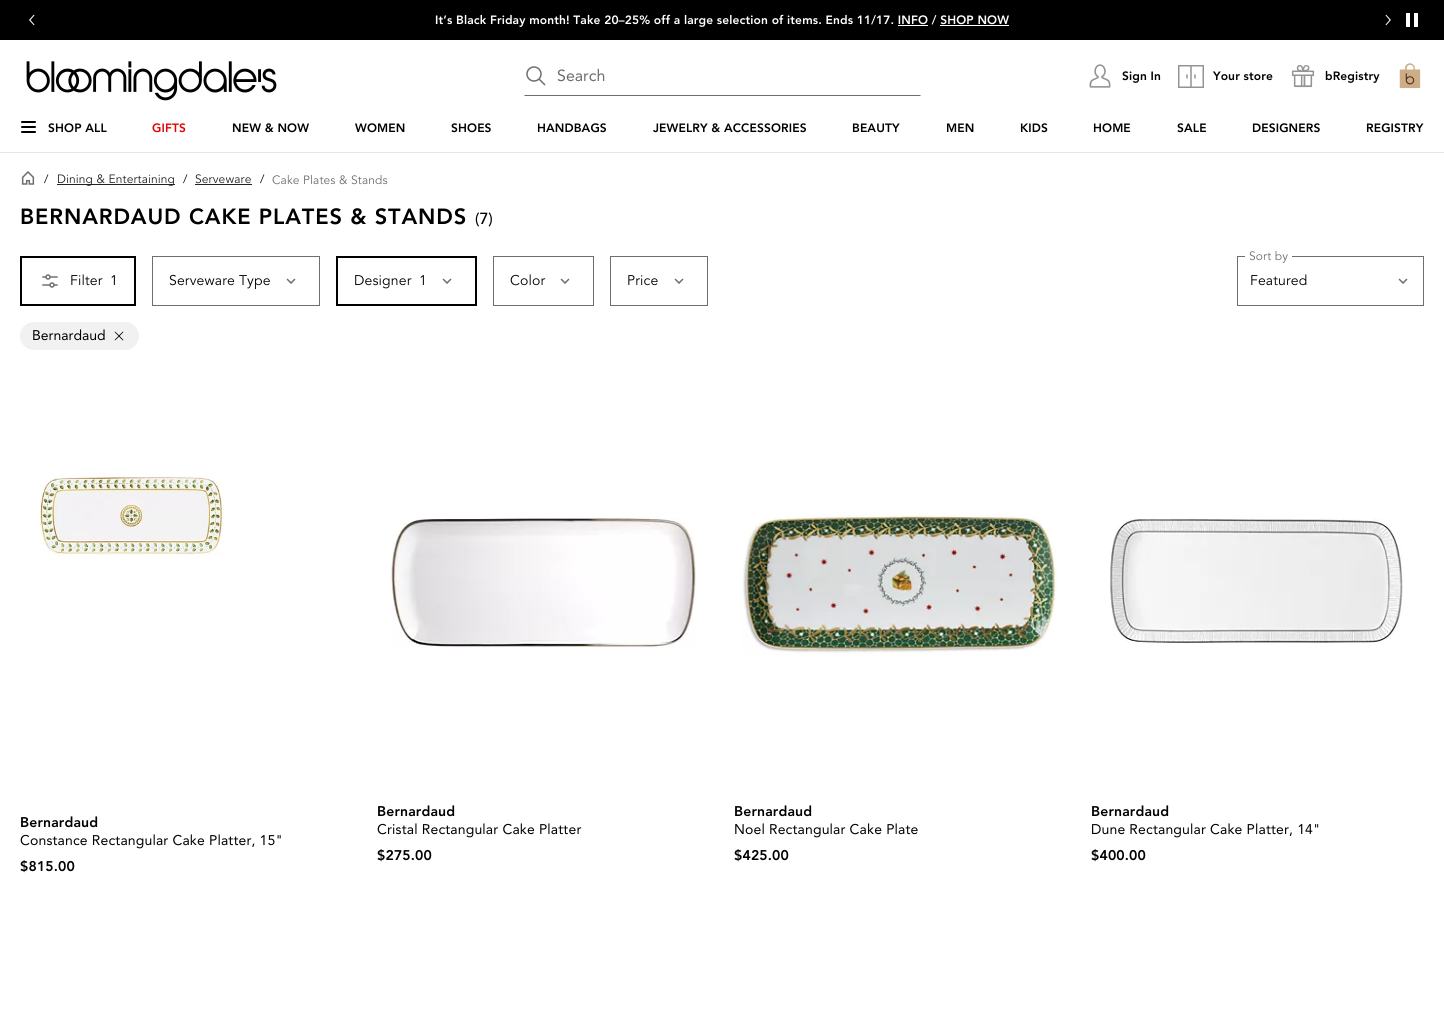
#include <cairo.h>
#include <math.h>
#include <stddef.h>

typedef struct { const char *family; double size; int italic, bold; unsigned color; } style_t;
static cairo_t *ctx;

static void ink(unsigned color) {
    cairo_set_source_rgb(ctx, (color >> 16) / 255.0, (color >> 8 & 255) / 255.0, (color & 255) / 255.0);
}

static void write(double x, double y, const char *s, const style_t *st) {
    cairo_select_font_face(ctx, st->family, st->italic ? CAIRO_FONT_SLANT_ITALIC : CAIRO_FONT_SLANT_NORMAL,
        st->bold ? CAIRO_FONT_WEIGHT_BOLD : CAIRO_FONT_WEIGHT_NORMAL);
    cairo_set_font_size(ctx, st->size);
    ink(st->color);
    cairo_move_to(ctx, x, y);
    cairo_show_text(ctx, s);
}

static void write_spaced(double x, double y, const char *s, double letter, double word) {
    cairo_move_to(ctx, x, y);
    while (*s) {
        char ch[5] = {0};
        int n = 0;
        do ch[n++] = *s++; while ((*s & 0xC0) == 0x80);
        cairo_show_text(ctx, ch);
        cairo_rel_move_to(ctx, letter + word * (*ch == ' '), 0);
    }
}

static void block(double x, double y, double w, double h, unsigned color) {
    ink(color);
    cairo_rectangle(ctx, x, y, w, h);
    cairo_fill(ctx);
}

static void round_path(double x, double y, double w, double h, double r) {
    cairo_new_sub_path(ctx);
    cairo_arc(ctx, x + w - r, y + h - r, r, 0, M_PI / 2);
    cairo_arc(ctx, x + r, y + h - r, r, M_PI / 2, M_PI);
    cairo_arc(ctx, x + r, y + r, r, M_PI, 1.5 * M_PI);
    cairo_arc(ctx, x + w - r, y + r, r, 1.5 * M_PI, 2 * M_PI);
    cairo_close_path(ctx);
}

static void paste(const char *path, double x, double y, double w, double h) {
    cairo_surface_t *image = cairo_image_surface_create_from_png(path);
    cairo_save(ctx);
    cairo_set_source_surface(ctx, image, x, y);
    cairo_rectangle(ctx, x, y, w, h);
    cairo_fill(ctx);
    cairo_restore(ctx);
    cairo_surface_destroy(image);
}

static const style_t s1 = {"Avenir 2", 16, 0, 0, 0x6e6e6e};
static const style_t s2 = {"Avenir Medium", 16, 0, 0, 0x000000};
static const style_t s3 = {"Avenir 2", 14, 0, 0, 0x000000};

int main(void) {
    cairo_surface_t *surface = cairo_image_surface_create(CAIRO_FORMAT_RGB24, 1444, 1025);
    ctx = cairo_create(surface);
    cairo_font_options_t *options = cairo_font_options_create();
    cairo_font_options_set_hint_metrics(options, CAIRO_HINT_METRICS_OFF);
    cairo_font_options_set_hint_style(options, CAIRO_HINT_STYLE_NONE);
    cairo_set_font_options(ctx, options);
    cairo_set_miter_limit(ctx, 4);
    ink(0xffffff);
    cairo_paint(ctx);
    block(0, 0, 1444, 40, 0x000000);
    paste("pic1.png", 29, 14, 6, 12);
    cairo_select_font_face(ctx, "Avenir Black", CAIRO_FONT_SLANT_NORMAL, CAIRO_FONT_WEIGHT_NORMAL);
    cairo_set_font_size(ctx, 12);
    ink(0xffffff);
    write_spaced(435, 24, "It’s Black Friday month! Take 20–25% off a large selection of items. Ends 11/17. INFO / SHOP NOW", 0.12, 0);
    block(898, 25, 30, 1, 0xffffff);
    block(940, 25, 69, 1, 0xffffff);
    paste("pic2.png", 1385, 14, 6, 12);
    paste("pic3.png", 1406, 13, 12, 14);
    paste("pic4.png", 26, 61, 251, 40);
    paste("pic5.png", 526, 66, 20, 20);
    ink(0x6e6e6e);
    cairo_new_path(ctx);
    cairo_move_to(ctx, 921, 96);
    cairo_line_to(ctx, 524, 96);
    cairo_line_to(ctx, 525, 95);
    cairo_line_to(ctx, 920, 95);
    cairo_close_path(ctx);
    cairo_fill(ctx);
    write(557, 81, "Search", &s1);
    paste("pic6.png", 1089, 64, 22, 24);
    cairo_select_font_face(ctx, "Avenir Black", CAIRO_FONT_SLANT_NORMAL, CAIRO_FONT_WEIGHT_NORMAL);
    cairo_set_font_size(ctx, 12);
    ink(0x000000);
    write_spaced(1122, 80, "Sign In", 0.12, 0);
    paste("pic7.png", 1178, 65, 26, 23);
    write_spaced(1213, 80, "Your store", 0.12, 0);
    paste("pic8.png", 1291, 65, 24, 23);
    write_spaced(1325, 80, "bRegistry", 0.12, 0);
    paste("pic9.png", 1399, 63, 22, 26);
    block(0, 152, 1444, 1, 0xe6e6e6);
    ink(0x000000);
    round_path(21, 121, 15, 2, 1);
    cairo_fill(ctx);
    round_path(21, 126, 15, 2, 1);
    cairo_fill(ctx);
    round_path(21, 131, 15, 2, 1);
    cairo_fill(ctx);
    write_spaced(48, 132, "SHOP ALL", 0.12, 0);
    ink(0xe30304);
    write_spaced(152, 132, "GIFTS", 0.12, 0);
    ink(0x000000);
    write_spaced(232, 132, "NEW & NOW", 0.12, 0);
    write_spaced(355, 132, "WOMEN", 0.12, 0);
    write_spaced(451, 132, "SHOES", 0.12, 0);
    write_spaced(537, 132, "HANDBAGS", 0.12, 0);
    write_spaced(653, 132, "JEWELRY & ACCESSORIES", 0.12, 0);
    write_spaced(852, 132, "BEAUTY", 0.12, 0);
    write_spaced(946, 132, "MEN", 0.12, 0);
    write_spaced(1020, 132, "KIDS", 0.12, 0);
    write_spaced(1093, 132, "HOME", 0.12, 0);
    write_spaced(1177, 132, "SALE", 0.12, 0);
    write_spaced(1252, 132, "DESIGNERS", 0.12, 0);
    write_spaced(1366, 132, "REGISTRY", 0.12, 0);
    paste("pic10.png", 21, 171, 14, 14);
    cairo_select_font_face(ctx, "Avenir", CAIRO_FONT_SLANT_NORMAL, CAIRO_FONT_WEIGHT_NORMAL);
    write_spaced(44, 183, "/", 0.12, 0);
    block(57, 184, 118, 1, 0x222222);
    write_spaced(57, 183, "Dining & Entertaining", 0.12, 0);
    ink(0x000000);
    write_spaced(183, 183, "/", 0.12, 0);
    ink(0x222222);
    write_spaced(195, 183, "Serveware", 0.12, 0);
    block(195, 184, 57, 1, 0x222222);
    ink(0x000000);
    write_spaced(260, 183, "/", 0.12, 0);
    ink(0x6e6e6e);
    write_spaced(272, 184, "Cake Plates & Stands", 0.12, 0);
    cairo_select_font_face(ctx, "Avenir Black", CAIRO_FONT_SLANT_NORMAL, CAIRO_FONT_WEIGHT_NORMAL);
    cairo_set_font_size(ctx, 21.8);
    ink(0x000000);
    write_spaced(20, 224, "BERNARDAUD CAKE PLATES & STANDS", 0.9, 0);
    write(475, 224, "(7)", &s2);
    cairo_rectangle(ctx, 21, 257, 114, 48);
    cairo_stroke(ctx);
    paste("pic11.png", 42, 274, 16, 14);
    cairo_select_font_face(ctx, "Avenir", CAIRO_FONT_SLANT_NORMAL, CAIRO_FONT_WEIGHT_NORMAL);
    cairo_set_font_size(ctx, 14);
    write_spaced(70, 285, "Filter", 0.15, 0);
    write_spaced(110, 285, "1", 0.15, 0);
    cairo_rectangle(ctx, 152.5, 256.5, 167, 49);
    ink(0x6e6e6e);
    cairo_set_line_width(ctx, 1);
    cairo_stroke(ctx);
    ink(0x000000);
    write_spaced(169, 285, "Serveware Type", 0.15, 0);
    paste("pic12.png", 286, 278, 10, 6);
    cairo_rectangle(ctx, 337, 257, 139, 48);
    cairo_set_line_width(ctx, 2);
    cairo_stroke(ctx);
    write_spaced(354, 285, "Designer", 0.15, 0);
    write_spaced(419, 285, "1", 0.15, 0);
    paste("pic12.png", 442, 278, 10, 6);
    cairo_rectangle(ctx, 493.5, 256.5, 100, 49);
    ink(0x6e6e6e);
    cairo_set_line_width(ctx, 1);
    cairo_stroke(ctx);
    ink(0x000000);
    write_spaced(510, 285, "Color", 0.15, 0);
    paste("pic12.png", 560, 278, 10, 6);
    cairo_rectangle(ctx, 610.5, 256.5, 97, 49);
    ink(0x6e6e6e);
    cairo_stroke(ctx);
    ink(0x000000);
    write_spaced(627, 285, "Price", 0.15, 0);
    paste("pic12.png", 674, 278, 10, 6);
    paste("pic12.png", 1398, 278, 10, 6);
    cairo_rectangle(ctx, 1237.5, 256.5, 186, 49);
    ink(0x6e6e6e);
    cairo_stroke(ctx);
    block(1245, 256, 47, 1, 0xffffff);
    cairo_set_font_size(ctx, 12);
    ink(0x6e6e6e);
    write_spaced(1249, 260, "Sort by", 0.12, 0);
    cairo_set_font_size(ctx, 14);
    ink(0x000000);
    write_spaced(1250, 285, "Featured", 0.15, 0);
    ink(0xf1f1f1);
    round_path(20, 322, 119, 28, 14);
    cairo_fill(ctx);
    write(32, 340, "Bernardaud", &s3);
    paste("pic13.png", 114, 331, 10, 10);
    paste("pic14.png", 40, 474, 185, 83);
    cairo_select_font_face(ctx, "Avenir Black", CAIRO_FONT_SLANT_NORMAL, CAIRO_FONT_WEIGHT_NORMAL);
    write_spaced(20, 827, "Bernardaud", 0.15, 0);
    cairo_select_font_face(ctx, "Avenir 2", CAIRO_FONT_SLANT_NORMAL, CAIRO_FONT_WEIGHT_NORMAL);
    write_spaced(20, 845, "Constance Rectangular Cake Platter, 15\"", 0.15, 0);
    cairo_select_font_face(ctx, "Avenir Black", CAIRO_FONT_SLANT_NORMAL, CAIRO_FONT_WEIGHT_NORMAL);
    write_spaced(20, 871, "$815.00", 0.15, 0);
    paste("pic15.png", 390, 518, 307, 130);
    write_spaced(377, 816, "Bernardaud", 0.15, 0);
    cairo_select_font_face(ctx, "Avenir 2", CAIRO_FONT_SLANT_NORMAL, CAIRO_FONT_WEIGHT_NORMAL);
    write_spaced(377, 834, "Cristal Rectangular Cake Platter", 0.15, 0);
    cairo_select_font_face(ctx, "Avenir Black", CAIRO_FONT_SLANT_NORMAL, CAIRO_FONT_WEIGHT_NORMAL);
    write_spaced(377, 860, "$275.00", 0.15, 0);
    paste("pic16.png", 742, 515, 315, 140);
    write_spaced(734, 816, "Bernardaud", 0.15, 0);
    cairo_select_font_face(ctx, "Avenir 2", CAIRO_FONT_SLANT_NORMAL, CAIRO_FONT_WEIGHT_NORMAL);
    write_spaced(734, 834, "Noel Rectangular Cake Plate", 0.15, 0);
    cairo_select_font_face(ctx, "Avenir Black", CAIRO_FONT_SLANT_NORMAL, CAIRO_FONT_WEIGHT_NORMAL);
    write_spaced(734, 860, "$425.00", 0.15, 0);
    paste("pic17.png", 1110, 518, 293, 125);
    write_spaced(1091, 816, "Bernardaud", 0.15, 0);
    cairo_select_font_face(ctx, "Avenir 2", CAIRO_FONT_SLANT_NORMAL, CAIRO_FONT_WEIGHT_NORMAL);
    write_spaced(1091, 834, "Dune Rectangular Cake Platter, 14\"", 0.15, 0);
    cairo_select_font_face(ctx, "Avenir Black", CAIRO_FONT_SLANT_NORMAL, CAIRO_FONT_WEIGHT_NORMAL);
    write_spaced(1091, 860, "$400.00", 0.15, 0);
    cairo_surface_write_to_png(surface, "screenshot.png");
    cairo_font_options_destroy(options);
    cairo_destroy(ctx);
    cairo_surface_destroy(surface);
    return 0;
}
